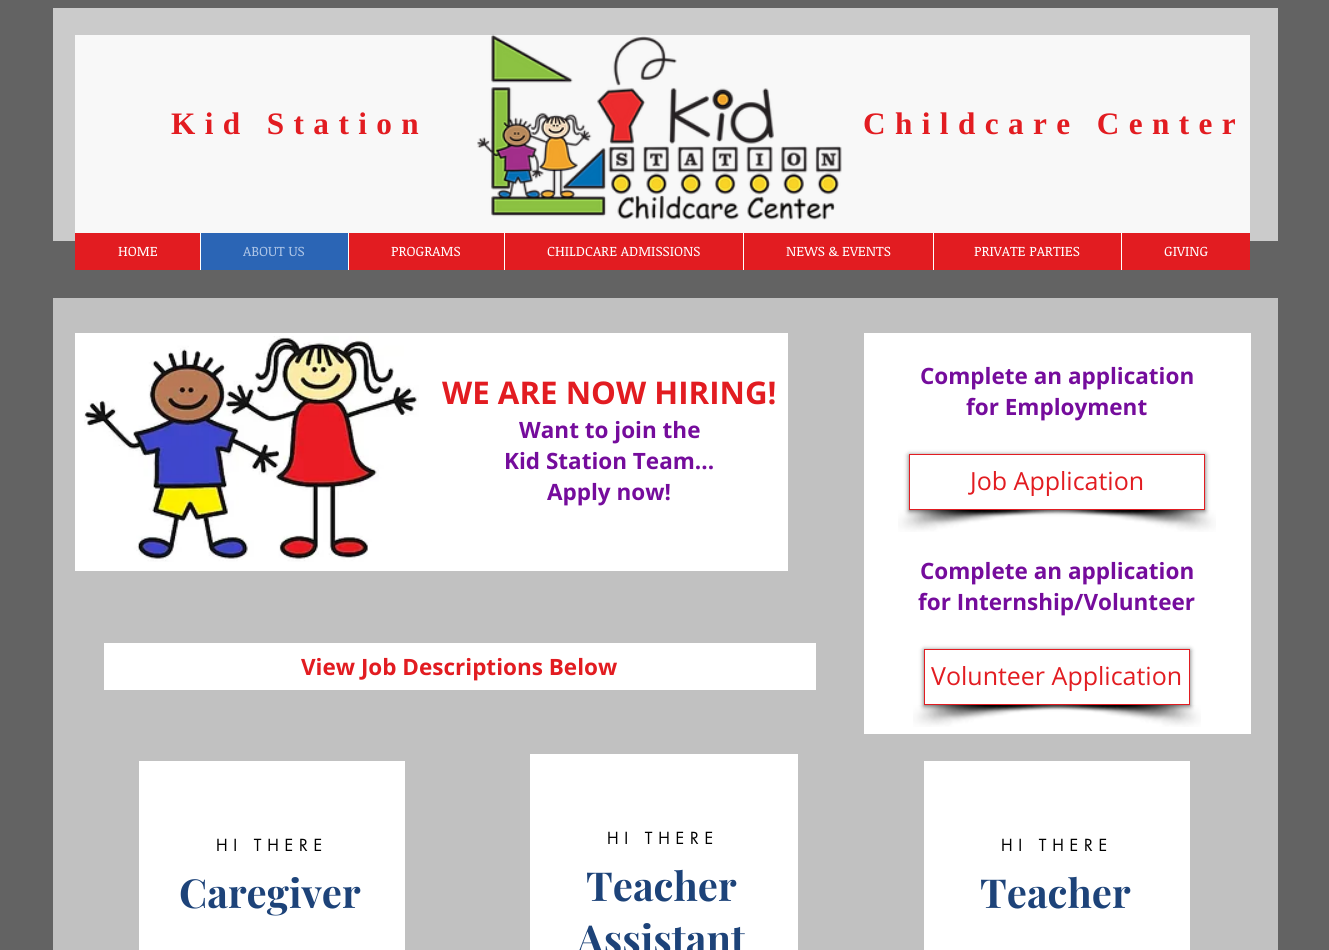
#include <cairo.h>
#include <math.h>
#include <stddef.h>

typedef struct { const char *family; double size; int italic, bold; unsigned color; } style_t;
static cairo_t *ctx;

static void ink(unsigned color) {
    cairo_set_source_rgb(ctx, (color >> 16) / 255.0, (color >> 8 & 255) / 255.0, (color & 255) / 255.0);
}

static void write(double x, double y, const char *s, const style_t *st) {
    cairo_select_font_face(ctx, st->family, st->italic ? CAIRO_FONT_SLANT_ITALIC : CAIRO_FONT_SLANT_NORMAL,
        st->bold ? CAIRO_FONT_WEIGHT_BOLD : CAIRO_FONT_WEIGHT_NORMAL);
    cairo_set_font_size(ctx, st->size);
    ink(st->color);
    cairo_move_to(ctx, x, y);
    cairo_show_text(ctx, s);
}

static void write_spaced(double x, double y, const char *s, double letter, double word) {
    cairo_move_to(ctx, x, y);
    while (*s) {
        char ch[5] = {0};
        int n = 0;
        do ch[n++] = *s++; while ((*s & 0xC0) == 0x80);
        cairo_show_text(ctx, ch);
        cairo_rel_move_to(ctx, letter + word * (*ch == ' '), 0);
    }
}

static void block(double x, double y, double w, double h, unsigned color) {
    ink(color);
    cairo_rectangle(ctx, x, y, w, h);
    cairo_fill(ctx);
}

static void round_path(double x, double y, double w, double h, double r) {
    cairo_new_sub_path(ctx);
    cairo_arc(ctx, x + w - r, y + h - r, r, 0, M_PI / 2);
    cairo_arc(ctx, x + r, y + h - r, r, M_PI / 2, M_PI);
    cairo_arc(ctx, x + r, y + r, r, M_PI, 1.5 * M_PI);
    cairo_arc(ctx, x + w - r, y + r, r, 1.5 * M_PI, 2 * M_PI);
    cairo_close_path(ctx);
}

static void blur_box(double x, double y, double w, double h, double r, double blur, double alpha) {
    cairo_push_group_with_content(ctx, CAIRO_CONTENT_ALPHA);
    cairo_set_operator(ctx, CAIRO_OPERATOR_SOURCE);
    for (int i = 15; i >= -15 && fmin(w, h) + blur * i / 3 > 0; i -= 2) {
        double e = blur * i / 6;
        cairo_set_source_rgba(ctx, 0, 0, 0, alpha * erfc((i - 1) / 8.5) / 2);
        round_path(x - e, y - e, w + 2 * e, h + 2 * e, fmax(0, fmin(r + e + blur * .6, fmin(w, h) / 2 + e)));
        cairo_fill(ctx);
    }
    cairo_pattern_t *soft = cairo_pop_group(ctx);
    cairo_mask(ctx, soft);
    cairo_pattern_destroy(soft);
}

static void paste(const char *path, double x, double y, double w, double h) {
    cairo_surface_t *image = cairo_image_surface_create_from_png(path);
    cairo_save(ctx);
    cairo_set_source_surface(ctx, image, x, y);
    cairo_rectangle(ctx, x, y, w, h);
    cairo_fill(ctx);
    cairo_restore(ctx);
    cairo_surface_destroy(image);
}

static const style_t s1 = {"Noticia Text", 13.75, 0, 0, 0xffffff};
static const style_t s2 = {"Noticia Text", 13.75, 0, 0, 0xacc4e6};
static const style_t s3 = {"Open Sans", 31.25, 0, 1, 0xe21c21};
static const style_t s4 = {"Open Sans", 22.5, 0, 1, 0x750c9c};
static const style_t s5 = {"Open Sans", 25, 0, 0, 0xe21c21};
static const style_t s6 = {"Open Sans", 22.5, 0, 1, 0xe21c21};
static const style_t s7 = {"Playfair Display", 40, 0, 1, 0x1d4379};

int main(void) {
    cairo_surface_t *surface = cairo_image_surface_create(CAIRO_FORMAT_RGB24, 1329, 950);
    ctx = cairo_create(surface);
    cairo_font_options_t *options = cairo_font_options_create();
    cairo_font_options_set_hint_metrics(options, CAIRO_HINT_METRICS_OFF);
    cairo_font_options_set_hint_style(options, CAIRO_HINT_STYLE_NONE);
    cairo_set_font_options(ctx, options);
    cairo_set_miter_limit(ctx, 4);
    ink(0x636363);
    cairo_paint(ctx);
    block(53, 8, 1225, 233, 0xcbcbcb);
    block(75, 35, 1175, 198, 0xf8f8f8);
    cairo_select_font_face(ctx, "Liberation Serif", CAIRO_FONT_SLANT_NORMAL, CAIRO_FONT_WEIGHT_BOLD);
    cairo_set_font_size(ctx, 31.25);
    ink(0xe21c21);
    write_spaced(171, 134, "Kid Station", 9.4, 0);
    paste("pic1.png", 477, 34, 365, 186);
    write_spaced(863, 134, "Childcare Center", 9.4, 0);
    block(75, 233, 1175, 37, 0xe21c21);
    write(118, 256, "HOME", &s1);
    block(201, 233, 147, 37, 0x2b65b5);
    block(200, 233, 1, 37, 0xffffff);
    write(243, 256, "ABOUT US", &s2);
    block(348, 233, 1, 37, 0xffffff);
    write(391, 256, "PROGRAMS", &s1);
    block(504, 233, 1, 37, 0xffffff);
    write(547, 256, "CHILDCARE ADMISSIONS", &s1);
    block(743, 233, 1, 37, 0xffffff);
    write(786, 256, "NEWS & EVENTS", &s1);
    block(933, 233, 1, 37, 0xffffff);
    write(974, 256, "PRIVATE PARTIES", &s1);
    block(1121, 233, 1, 37, 0xffffff);
    write(1164, 256, "GIVING", &s1);
    block(53, 298, 1225, 652, 0xc1c1c1);
    block(75, 333, 713, 238, 0xffffff);
    paste("pic2.png", 84, 336, 335, 226);
    write(442, 404, "WE ARE NOW HIRING!", &s3);
    write(519, 438, "Want to join the", &s4);
    write(504, 469, "Kid Station Team...", &s4);
    write(547, 500, "Apply now!", &s4);
    block(864, 333, 387, 401, 0xffffff);
    write(920, 384, "Complete an application", &s4);
    write(966, 415, "for Employment", &s4);
    paste("pic3.png", 898, 510, 186, 22);
    paste("pic4.png", 1034, 510, 182, 22);
    ink(0x000000);
    blur_box(909, 455, 296, 56, 0, 2.5, 0.6);
    ink(0xffffff);
    cairo_rectangle(ctx, 909.5, 454.5, 295, 55);
    cairo_fill_preserve(ctx);
    ink(0xe21c21);
    cairo_set_line_width(ctx, 1);
    cairo_stroke(ctx);
    write(970, 490, "Job Application", &s5);
    paste("pic3.png", 913, 705, 186, 22);
    paste("pic5.png", 1031, 705, 170, 22);
    ink(0x000000);
    blur_box(924, 650, 266, 56, 0, 2.5, 0.6);
    ink(0xffffff);
    cairo_rectangle(ctx, 924.5, 649.5, 265, 55);
    cairo_fill_preserve(ctx);
    ink(0xe21c21);
    cairo_stroke(ctx);
    write(931, 685, "Volunteer Application", &s5);
    write(920, 579, "Complete an application", &s4);
    write(918, 610, "for Internship/Volunteer", &s4);
    block(104, 643, 712, 47, 0xffffff);
    write(301, 675, "View Job Descriptions Below", &s6);
    block(139, 761, 266, 189, 0xffffff);
    cairo_select_font_face(ctx, "futura", CAIRO_FONT_SLANT_NORMAL, CAIRO_FONT_WEIGHT_NORMAL);
    cairo_set_font_size(ctx, 16.25);
    ink(0x000000);
    write_spaced(216, 851, "HI THERE", 5.75, 0);
    write(179, 908, "Caregiver", &s7);
    block(530, 754, 268, 196, 0xffffff);
    cairo_select_font_face(ctx, "futura", CAIRO_FONT_SLANT_NORMAL, CAIRO_FONT_WEIGHT_NORMAL);
    cairo_set_font_size(ctx, 16.25);
    ink(0x000000);
    write_spaced(607, 844, "HI THERE", 5.75, 0);
    write(586, 901, "Teacher", &s7);
    write(577, 954, "Assistant", &s7);
    block(924, 761, 266, 189, 0xffffff);
    cairo_select_font_face(ctx, "futura", CAIRO_FONT_SLANT_NORMAL, CAIRO_FONT_WEIGHT_NORMAL);
    cairo_set_font_size(ctx, 16.25);
    ink(0x000000);
    write_spaced(1001, 851, "HI THERE", 5.75, 0);
    write(980, 908, "Teacher", &s7);
    cairo_surface_write_to_png(surface, "screenshot.png");
    cairo_font_options_destroy(options);
    cairo_destroy(ctx);
    cairo_surface_destroy(surface);
    return 0;
}
